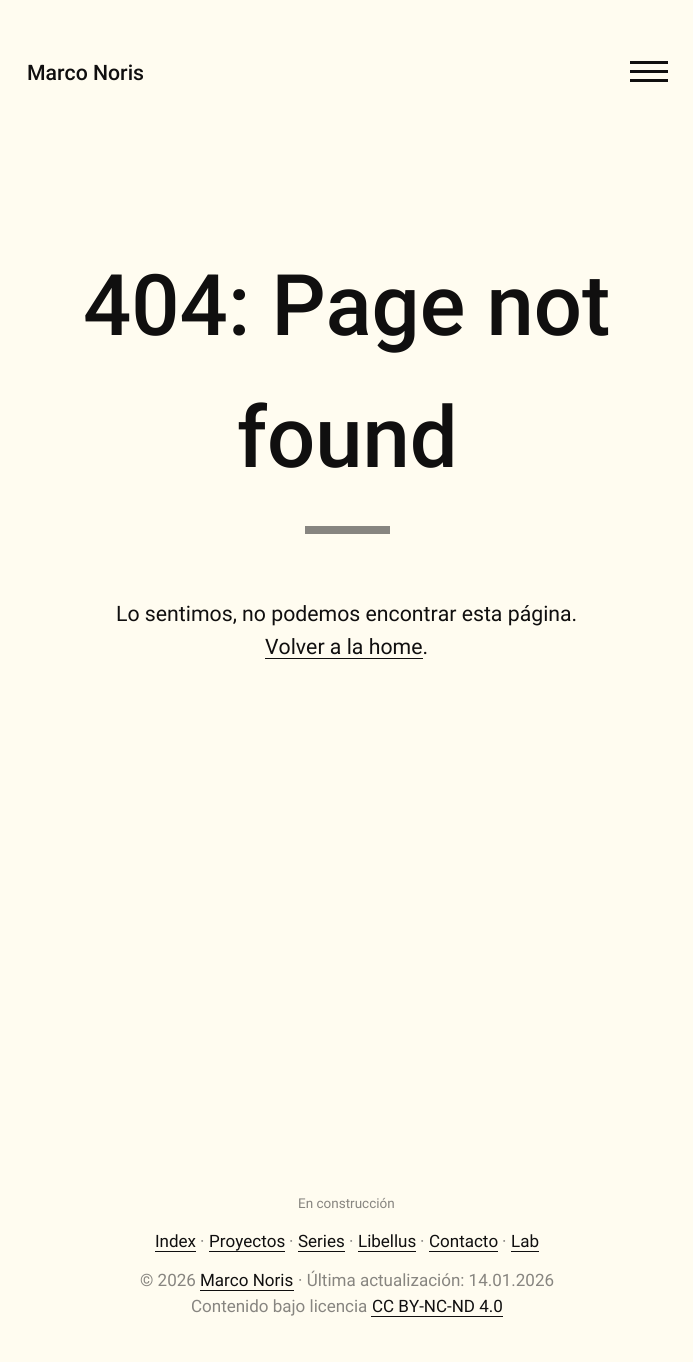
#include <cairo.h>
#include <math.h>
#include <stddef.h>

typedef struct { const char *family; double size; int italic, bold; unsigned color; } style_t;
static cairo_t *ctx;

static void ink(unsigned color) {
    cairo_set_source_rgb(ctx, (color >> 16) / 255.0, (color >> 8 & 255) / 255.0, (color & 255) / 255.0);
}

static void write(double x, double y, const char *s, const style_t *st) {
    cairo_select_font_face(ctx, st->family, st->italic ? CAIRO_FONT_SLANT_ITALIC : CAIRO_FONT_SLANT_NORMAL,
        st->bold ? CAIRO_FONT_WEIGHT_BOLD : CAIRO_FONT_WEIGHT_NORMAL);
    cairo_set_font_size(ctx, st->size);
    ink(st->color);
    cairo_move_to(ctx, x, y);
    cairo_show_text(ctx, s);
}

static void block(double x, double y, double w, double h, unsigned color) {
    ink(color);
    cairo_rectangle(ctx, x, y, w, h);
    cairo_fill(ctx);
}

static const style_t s1 = {"Roboto Medium", 21.25, 0, 0, 0x100f0f};
static const style_t s2 = {"Roboto Medium", 85, 0, 0, 0x100f0f};
static const style_t s3 = {"Roboto", 21.25, 0, 0, 0x100f0f};
static const style_t s4 = {"Roboto", 13.5, 0, 0, 0x878580};
static const style_t s5 = {"Roboto", 17, 0, 0, 0x100f0f};
static const style_t s6 = {"Roboto", 17, 0, 0, 0x878580};

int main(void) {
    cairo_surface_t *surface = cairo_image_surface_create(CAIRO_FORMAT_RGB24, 693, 1362);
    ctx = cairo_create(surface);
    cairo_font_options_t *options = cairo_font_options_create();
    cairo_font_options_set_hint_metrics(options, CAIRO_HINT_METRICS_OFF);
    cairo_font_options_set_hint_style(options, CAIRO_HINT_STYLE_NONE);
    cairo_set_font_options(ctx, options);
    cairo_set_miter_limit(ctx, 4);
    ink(0xfffcf0);
    cairo_paint(ctx);
    write(27, 80, "Marco Noris", &s1);
    block(630, 61, 38, 3, 0x100f0f);
    block(630, 70, 38, 3, 0x100f0f);
    block(630, 79, 38, 3, 0x100f0f);
    write(83, 335, "404: Page not", &s2);
    write(237, 467, "found", &s2);
    block(305, 526, 85, 8, 0x878580);
    write(116, 621, "Lo sentimos, no podemos encontrar esta página.", &s3);
    write(265, 654, "Volver a la home.", &s3);
    block(265, 658, 158, 1, 0x100f0f);
    write(298, 1208, "En construcción", &s4);
    write(155, 1247, "Index", &s5);
    block(155, 1251, 41, 1, 0x100f0f);
    write(200, 1247, "·", &s6);
    write(209, 1247, "Proyectos", &s5);
    block(209, 1251, 76, 1, 0x100f0f);
    write(289, 1247, "·", &s6);
    write(298, 1247, "Series", &s5);
    block(298, 1251, 47, 1, 0x100f0f);
    write(349, 1247, "·", &s6);
    write(358, 1247, "Libellus", &s5);
    block(358, 1251, 58, 1, 0x100f0f);
    write(420, 1247, "·", &s6);
    write(429, 1247, "Contacto", &s5);
    block(429, 1251, 69, 1, 0x100f0f);
    write(502, 1247, "·", &s6);
    write(511, 1247, "Lab", &s5);
    block(511, 1251, 28, 1, 0x100f0f);
    write(140, 1286, "© 2026", &s6);
    write(200, 1286, "Marco Noris", &s5);
    block(200, 1290, 94, 1, 0x100f0f);
    write(298, 1286, "· Última actualización: 14.01.2026", &s6);
    write(191, 1312, "Contenido bajo licencia", &s6);
    write(372, 1312, "CC BY-NC-ND 4.0", &s5);
    block(371, 1316, 132, 1, 0x100f0f);
    cairo_surface_write_to_png(surface, "screenshot.png");
    cairo_font_options_destroy(options);
    cairo_destroy(ctx);
    cairo_surface_destroy(surface);
    return 0;
}
